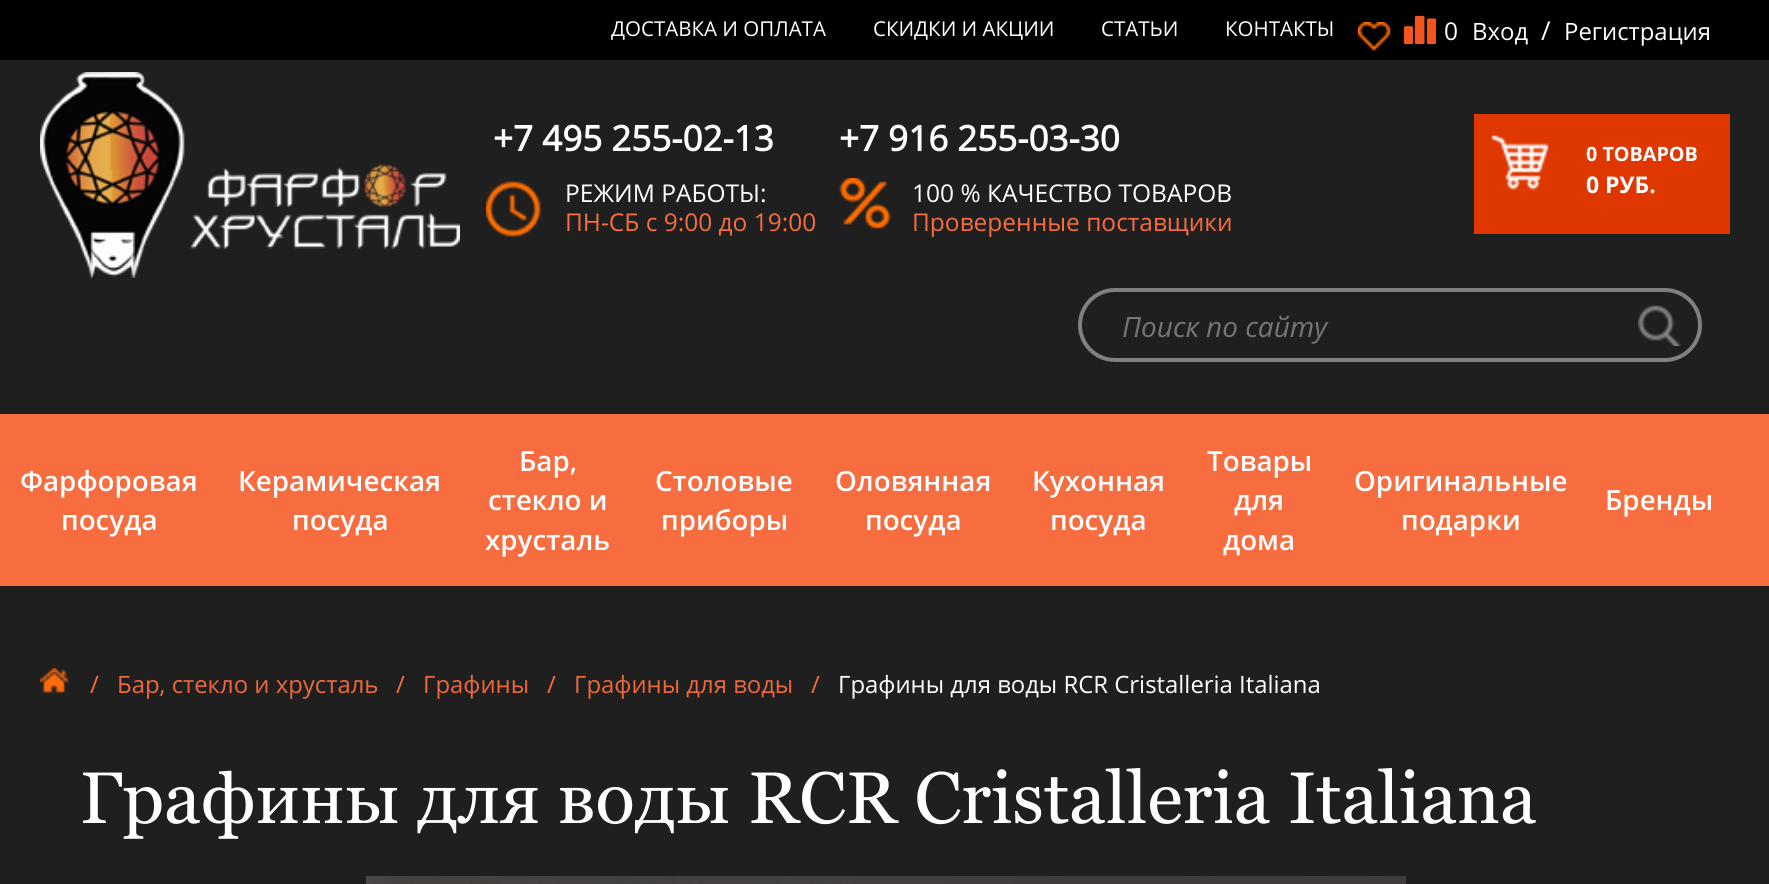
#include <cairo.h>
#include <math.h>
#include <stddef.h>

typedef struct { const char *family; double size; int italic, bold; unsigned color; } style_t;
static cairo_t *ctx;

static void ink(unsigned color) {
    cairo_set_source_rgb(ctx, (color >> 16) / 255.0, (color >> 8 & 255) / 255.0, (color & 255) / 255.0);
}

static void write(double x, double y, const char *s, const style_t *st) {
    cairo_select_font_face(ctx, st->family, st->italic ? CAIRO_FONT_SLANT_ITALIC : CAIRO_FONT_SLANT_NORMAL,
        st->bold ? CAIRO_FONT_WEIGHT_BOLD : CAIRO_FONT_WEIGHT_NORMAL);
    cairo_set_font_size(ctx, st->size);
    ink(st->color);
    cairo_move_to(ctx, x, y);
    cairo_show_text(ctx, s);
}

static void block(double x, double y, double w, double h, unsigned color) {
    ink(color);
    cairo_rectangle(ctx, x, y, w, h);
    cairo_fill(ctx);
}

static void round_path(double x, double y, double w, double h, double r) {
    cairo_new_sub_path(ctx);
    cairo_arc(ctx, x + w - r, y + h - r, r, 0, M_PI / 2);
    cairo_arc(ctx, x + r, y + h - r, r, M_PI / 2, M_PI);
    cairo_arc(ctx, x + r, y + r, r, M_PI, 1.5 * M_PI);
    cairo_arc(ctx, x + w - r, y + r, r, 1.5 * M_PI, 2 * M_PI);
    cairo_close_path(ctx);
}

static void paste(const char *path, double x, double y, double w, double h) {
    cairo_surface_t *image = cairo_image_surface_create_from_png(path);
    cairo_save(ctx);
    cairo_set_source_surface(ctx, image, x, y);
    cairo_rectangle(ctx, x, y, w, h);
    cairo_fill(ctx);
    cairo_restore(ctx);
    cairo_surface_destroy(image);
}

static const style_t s1 = {"Open Sans", 20.5, 0, 0, 0xffffff};
static const style_t s2 = {"Open Sans", 24.5, 0, 0, 0xffffff};
static const style_t s3 = {"Open Sans", 23.9, 0, 0, 0xffffff};
static const style_t s4 = {"Open Sans", 26, 0, 0, 0xffffff};
static const style_t s5 = {"Open Sans", 35, 0, 1, 0xffffff};
static const style_t s6 = {"Open Sans", 24.5, 0, 0, 0xf76d40};
static const style_t s7 = {"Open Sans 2", 19.75, 0, 1, 0xffffff};
static const style_t s8 = {"Open Sans 2", 23, 0, 1, 0xffffff};
static const style_t s9 = {"Open Sans", 28, 1, 0, 0x757575};
static const style_t s10 = {"Open Sans SemiBold", 27.75, 0, 0, 0xffffff};
static const style_t s11 = {"Open Sans", 23.9, 0, 0, 0xf76d40};
static const style_t s12 = {"Open Sans", 23.9, 0, 0, 0xed683d};
static const style_t s13 = {"Georgia", 72.8, 0, 0, 0xffffff};

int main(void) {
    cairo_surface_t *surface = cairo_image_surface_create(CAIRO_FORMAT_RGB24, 1769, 884);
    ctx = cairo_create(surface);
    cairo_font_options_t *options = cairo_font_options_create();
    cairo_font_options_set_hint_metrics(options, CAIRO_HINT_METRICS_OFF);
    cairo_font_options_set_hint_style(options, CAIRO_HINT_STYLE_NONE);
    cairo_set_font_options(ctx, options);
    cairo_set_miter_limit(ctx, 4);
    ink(0x1f1f1f);
    cairo_paint(ctx);
    block(0, 0, 1769, 60, 0x000000);
    write(611, 36, "ДОСТАВКА И ОПЛАТА", &s1);
    write(873, 36, "СКИДКИ И АКЦИИ", &s1);
    write(1101, 36, "СТАТЬИ", &s1);
    write(1225, 36, "КОНТАКТЫ", &s1);
    paste("pic1.png", 1358, 22, 33, 29);
    paste("pic2.png", 1404, 15, 32, 30);
    write(1444, 40, "0", &s2);
    write(1472, 40, "Вход", &s3);
    write(1541, 40, "/", &s4);
    write(1564, 40, "Регистрация", &s3);
    paste("pic3.png", 40, 72, 420, 206);
    write(493, 151, "+7 495 255-02-13", &s5);
    paste("pic4.png", 486, 181, 55, 56);
    write(565, 202, "РЕЖИМ РАБОТЫ:", &s2);
    write(565, 231, "ПН-СБ с 9:00 до 19:00", &s6);
    write(839, 151, "+7 916 255-03-30", &s5);
    paste("pic5.png", 839, 178, 52, 51);
    write(912, 202, "100 % КАЧЕСТВО ТОВАРОВ", &s2);
    write(912, 231, "Проверенные поставщики", &s6);
    block(1474, 114, 256, 120, 0xde3700);
    paste("pic6.png", 1491, 135, 58, 56);
    write(1586, 161, "0 ТОВАРОВ", &s7);
    write(1586, 193, "0 РУБ.", &s8);
    round_path(1080, 290, 620, 70, 35);
    ink(0x808080);
    cairo_set_line_width(ctx, 4);
    cairo_stroke(ctx);
    write(1122, 337, "Поиск по сайту", &s9);
    paste("pic7.png", 1638, 305, 43, 41);
    block(0, 414, 1769, 172, 0xf76d40);
    write(20, 491, "Фарфоровая", &s10);
    write(61, 530, "посуда", &s10);
    write(238, 491, "Керамическая", &s10);
    write(292, 530, "посуда", &s10);
    write(519, 471, "Бар,", &s10);
    write(488, 510, "стекло и", &s10);
    write(485, 550, "хрусталь", &s10);
    write(655, 491, "Столовые", &s10);
    write(661, 530, "приборы", &s10);
    write(835, 491, "Оловянная", &s10);
    write(865, 530, "посуда", &s10);
    write(1032, 491, "Кухонная", &s10);
    write(1050, 530, "посуда", &s10);
    write(1207, 471, "Товары", &s10);
    write(1234, 510, "для", &s10);
    write(1223, 550, "дома", &s10);
    write(1354, 491, "Оригинальные", &s10);
    write(1401, 530, "подарки", &s10);
    write(1605, 510, "Бренды", &s10);
    paste("pic8.png", 40, 668, 29, 25);
    write(90, 693, "/", &s11);
    write(117, 693, "Бар, стекло и хрусталь", &s12);
    write(396, 693, "/", &s11);
    write(423, 693, "Графины", &s12);
    write(547, 693, "/", &s11);
    write(574, 693, "Графины для воды", &s12);
    write(811, 693, "/", &s11);
    write(838, 693, "Графины для воды RCR Cristalleria Italiana", &s3);
    write(80, 823, "Графины для воды RCR Cristalleria Italiana", &s13);
    paste("pic9.png", 366, 876, 1040, 8);
    cairo_surface_write_to_png(surface, "screenshot.png");
    cairo_font_options_destroy(options);
    cairo_destroy(ctx);
    cairo_surface_destroy(surface);
    return 0;
}
